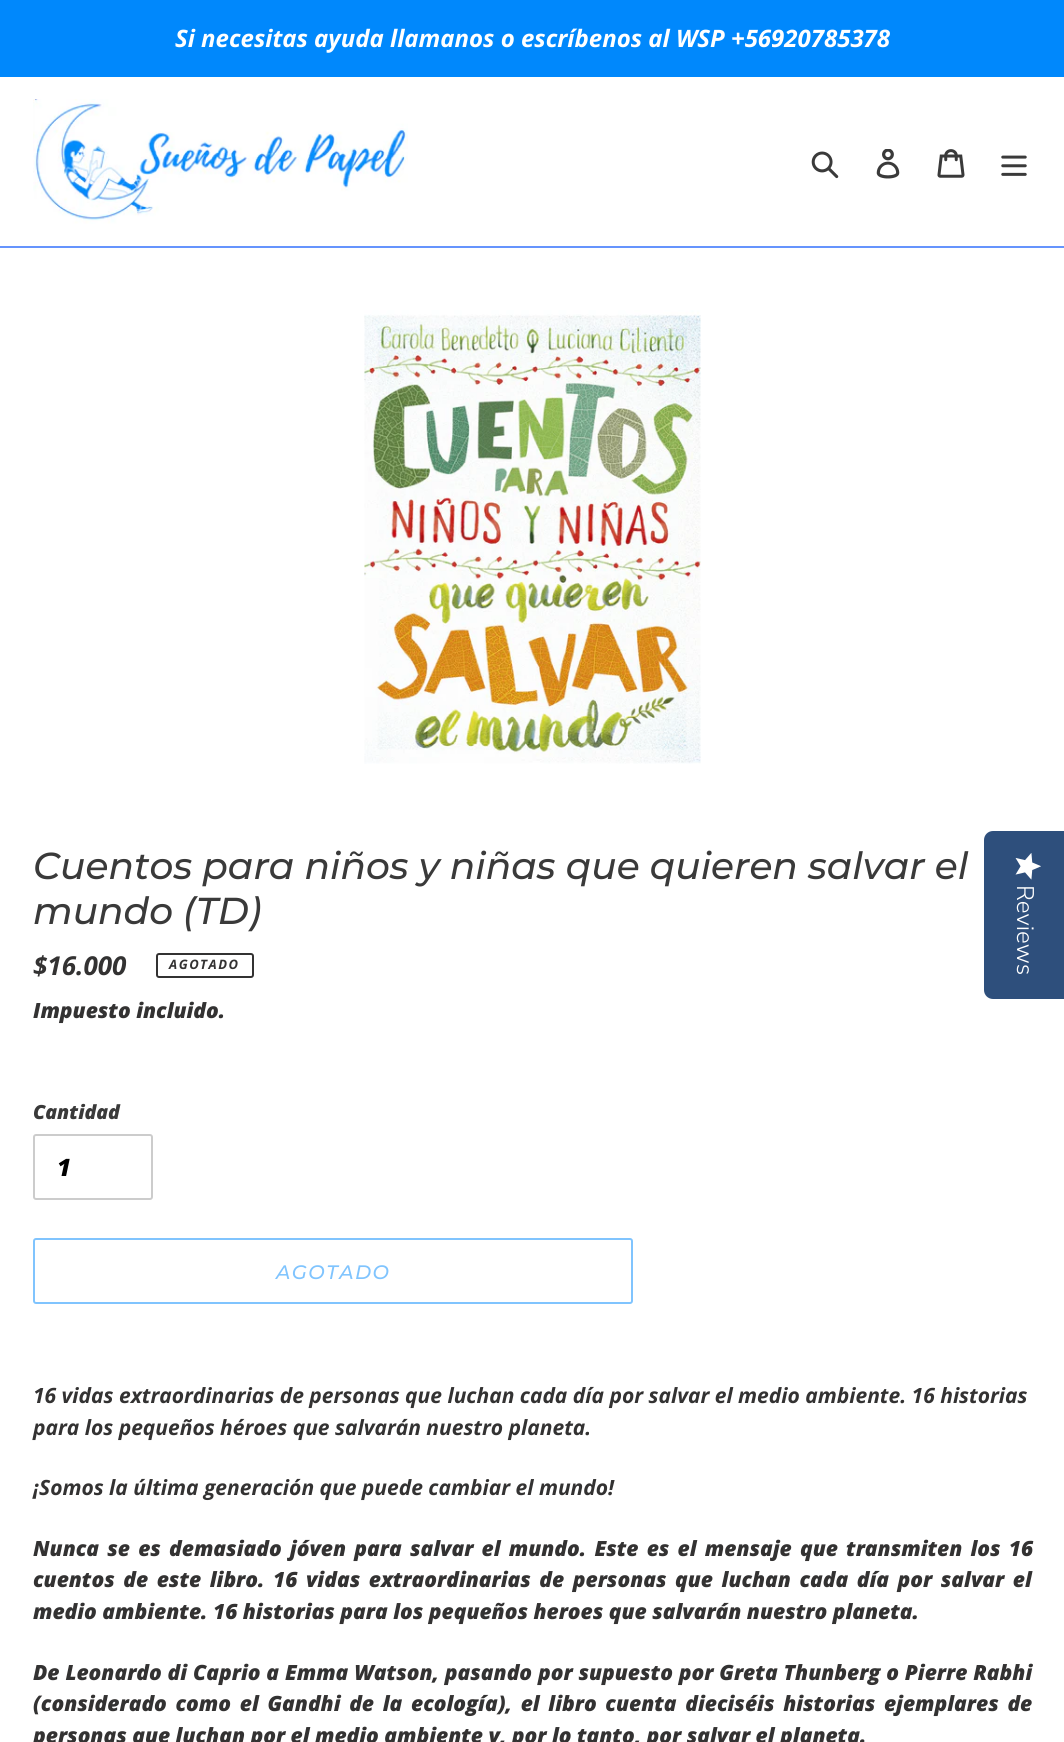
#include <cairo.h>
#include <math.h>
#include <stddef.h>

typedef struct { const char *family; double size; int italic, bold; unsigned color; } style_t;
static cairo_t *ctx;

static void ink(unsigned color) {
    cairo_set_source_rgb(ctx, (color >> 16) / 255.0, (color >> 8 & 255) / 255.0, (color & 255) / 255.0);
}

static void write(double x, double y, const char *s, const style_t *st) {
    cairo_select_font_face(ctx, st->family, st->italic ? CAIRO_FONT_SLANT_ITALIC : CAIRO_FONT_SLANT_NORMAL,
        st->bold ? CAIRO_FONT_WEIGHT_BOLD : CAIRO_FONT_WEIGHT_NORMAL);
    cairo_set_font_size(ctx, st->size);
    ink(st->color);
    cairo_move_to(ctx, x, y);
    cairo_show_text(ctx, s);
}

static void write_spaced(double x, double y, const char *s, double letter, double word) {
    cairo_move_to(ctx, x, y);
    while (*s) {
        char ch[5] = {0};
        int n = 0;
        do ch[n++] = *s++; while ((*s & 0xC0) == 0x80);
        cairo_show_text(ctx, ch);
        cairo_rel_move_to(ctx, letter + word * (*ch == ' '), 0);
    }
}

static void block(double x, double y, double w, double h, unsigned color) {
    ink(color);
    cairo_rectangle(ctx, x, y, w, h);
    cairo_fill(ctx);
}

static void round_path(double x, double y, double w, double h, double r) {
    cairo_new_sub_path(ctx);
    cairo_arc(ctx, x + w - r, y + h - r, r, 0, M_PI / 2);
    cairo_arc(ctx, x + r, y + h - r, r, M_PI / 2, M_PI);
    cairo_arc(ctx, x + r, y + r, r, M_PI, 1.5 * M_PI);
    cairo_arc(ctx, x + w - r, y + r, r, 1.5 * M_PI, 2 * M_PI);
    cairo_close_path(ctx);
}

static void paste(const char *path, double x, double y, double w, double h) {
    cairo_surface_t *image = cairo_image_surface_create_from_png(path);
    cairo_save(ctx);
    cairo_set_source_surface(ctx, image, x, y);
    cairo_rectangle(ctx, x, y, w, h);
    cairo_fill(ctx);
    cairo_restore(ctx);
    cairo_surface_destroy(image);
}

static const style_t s1 = {"Open Sans", 24, 1, 1, 0xffffff};
static const style_t s2 = {"Montserrat Medium", 37.5, 1, 0, 0x3a3a3a};
static const style_t s3 = {"Open Sans", 26, 1, 1, 0x333232};
static const style_t s4 = {"Open Sans ExtraBold", 21, 1, 0, 0x333232};
static const style_t s5 = {"Open Sans ExtraBold", 19.5, 1, 0, 0x3a3a3a};
static const style_t s6 = {"Open Sans ExtraBold", 24, 1, 0, 0x000000};
static const style_t s7 = {"Open Sans", 21, 1, 1, 0x333232};
static const style_t s8 = {"Nunito Sans Light", 24, 0, 0, 0xffffff};

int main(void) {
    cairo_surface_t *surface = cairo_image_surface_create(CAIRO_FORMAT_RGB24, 1064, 1742);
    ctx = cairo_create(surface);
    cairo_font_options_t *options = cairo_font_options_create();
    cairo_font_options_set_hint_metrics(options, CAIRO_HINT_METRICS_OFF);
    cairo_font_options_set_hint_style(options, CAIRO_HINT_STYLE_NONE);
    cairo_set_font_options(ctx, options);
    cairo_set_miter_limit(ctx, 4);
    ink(0xffffff);
    cairo_paint(ctx);
    block(0, 0, 1064, 77, 0x0088fc);
    write(175, 47, "Si necesitas ayuda llamanos o escríbenos al WSP +56920785378", &s1);
    block(0, 246, 1064, 2, 0x6594fd);
    paste("pic1.png", 33, 99, 375, 125);
    paste("pic2.png", 811, 151, 28, 28);
    paste("pic3.png", 876, 149, 24, 30);
    paste("pic4.png", 937, 149, 28, 29);
    paste("pic5.png", 1001, 155, 26, 21);
    paste("pic6.png", 364, 310, 337, 454);
    write(33, 879, "Cuentos para niños y niñas que quieren salvar el", &s2);
    write(33, 924, "mundo (TD)", &s2);
    write(33, 975, "$16.000", &s3);
    round_path(157, 954, 96, 23, 2);
    cairo_stroke(ctx);
    cairo_set_font_size(ctx, 13);
    write_spaced(169, 969, "AGOTADO", 1.5, 0);
    write(33, 1018, "Impuesto incluido.", &s4);
    write(33, 1119, "Cantidad", &s5);
    round_path(34, 1135, 118, 64, 2);
    ink(0xcccccc);
    cairo_stroke(ctx);
    write(57, 1176, "1", &s6);
    round_path(34, 1239, 598, 64, 2);
    ink(0x80c4fe);
    cairo_stroke(ctx);
    cairo_select_font_face(ctx, "Montserrat Medium", CAIRO_FONT_SLANT_ITALIC, CAIRO_FONT_WEIGHT_NORMAL);
    cairo_set_font_size(ctx, 19.5);
    write_spaced(276, 1279, "AGOTADO", 1.5, 0);
    write(33, 1403, "16 vidas extraordinarias de personas que luchan cada día por salvar el medio ambiente. 16 historias", &s7);
    write(33, 1435, "para los pequeños héroes que salvarán nuestro planeta.", &s7);
    write(33, 1495, "¡Somos la última generación que puede cambiar el mundo!", &s7);
    cairo_select_font_face(ctx, "Open Sans ExtraBold", CAIRO_FONT_SLANT_ITALIC, CAIRO_FONT_WEIGHT_NORMAL);
    write_spaced(33, 1556, "Nunca se es demasiado jóven para salvar el mundo. Este es el mensaje que transmiten los 16", 0, 2.75);
    write_spaced(33, 1587, "cuentos de este libro. 16 vidas extraordinarias de personas que luchan cada día por salvar el", 0, 3.1);
    write(33, 1619, "medio ambiente. 16 historias para los pequeños heroes que salvarán nuestro planeta.", &s4);
    write_spaced(33, 1680, "De Leonardo di Caprio a Emma Watson, pasando por supuesto por Greta Thunberg o Pierre Rabhi", 0, 0.4);
    write_spaced(33, 1711, "(considerado como el Gandhi de la ecología), el libro cuenta dieciséis historias ejemplares de", 0, 3.25);
    write(33, 1743, "personas que luchan por el medio ambiente y, por lo tanto, por salvar el planeta.", &s4);
    ink(0x2e4f7c);
    cairo_new_path(ctx);
    cairo_move_to(ctx, 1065, 831);
    cairo_line_to(ctx, 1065, 999);
    cairo_line_to(ctx, 993, 999);
    cairo_curve_to(ctx, 988, 999, 984, 995, 984, 990);
    cairo_line_to(ctx, 984, 840);
    cairo_curve_to(ctx, 984, 835, 988, 831, 993, 831);
    cairo_close_path(ctx);
    cairo_fill(ctx);
    paste("pic7.png", 1015, 853, 26, 27);
    cairo_save(ctx);
    cairo_translate(ctx, 1017, 885);
    cairo_rotate(ctx, 90 * M_PI / 180);
    write(0, 0, "Reviews", &s8);
    cairo_restore(ctx);
    cairo_surface_write_to_png(surface, "screenshot.png");
    cairo_font_options_destroy(options);
    cairo_destroy(ctx);
    cairo_surface_destroy(surface);
    return 0;
}
